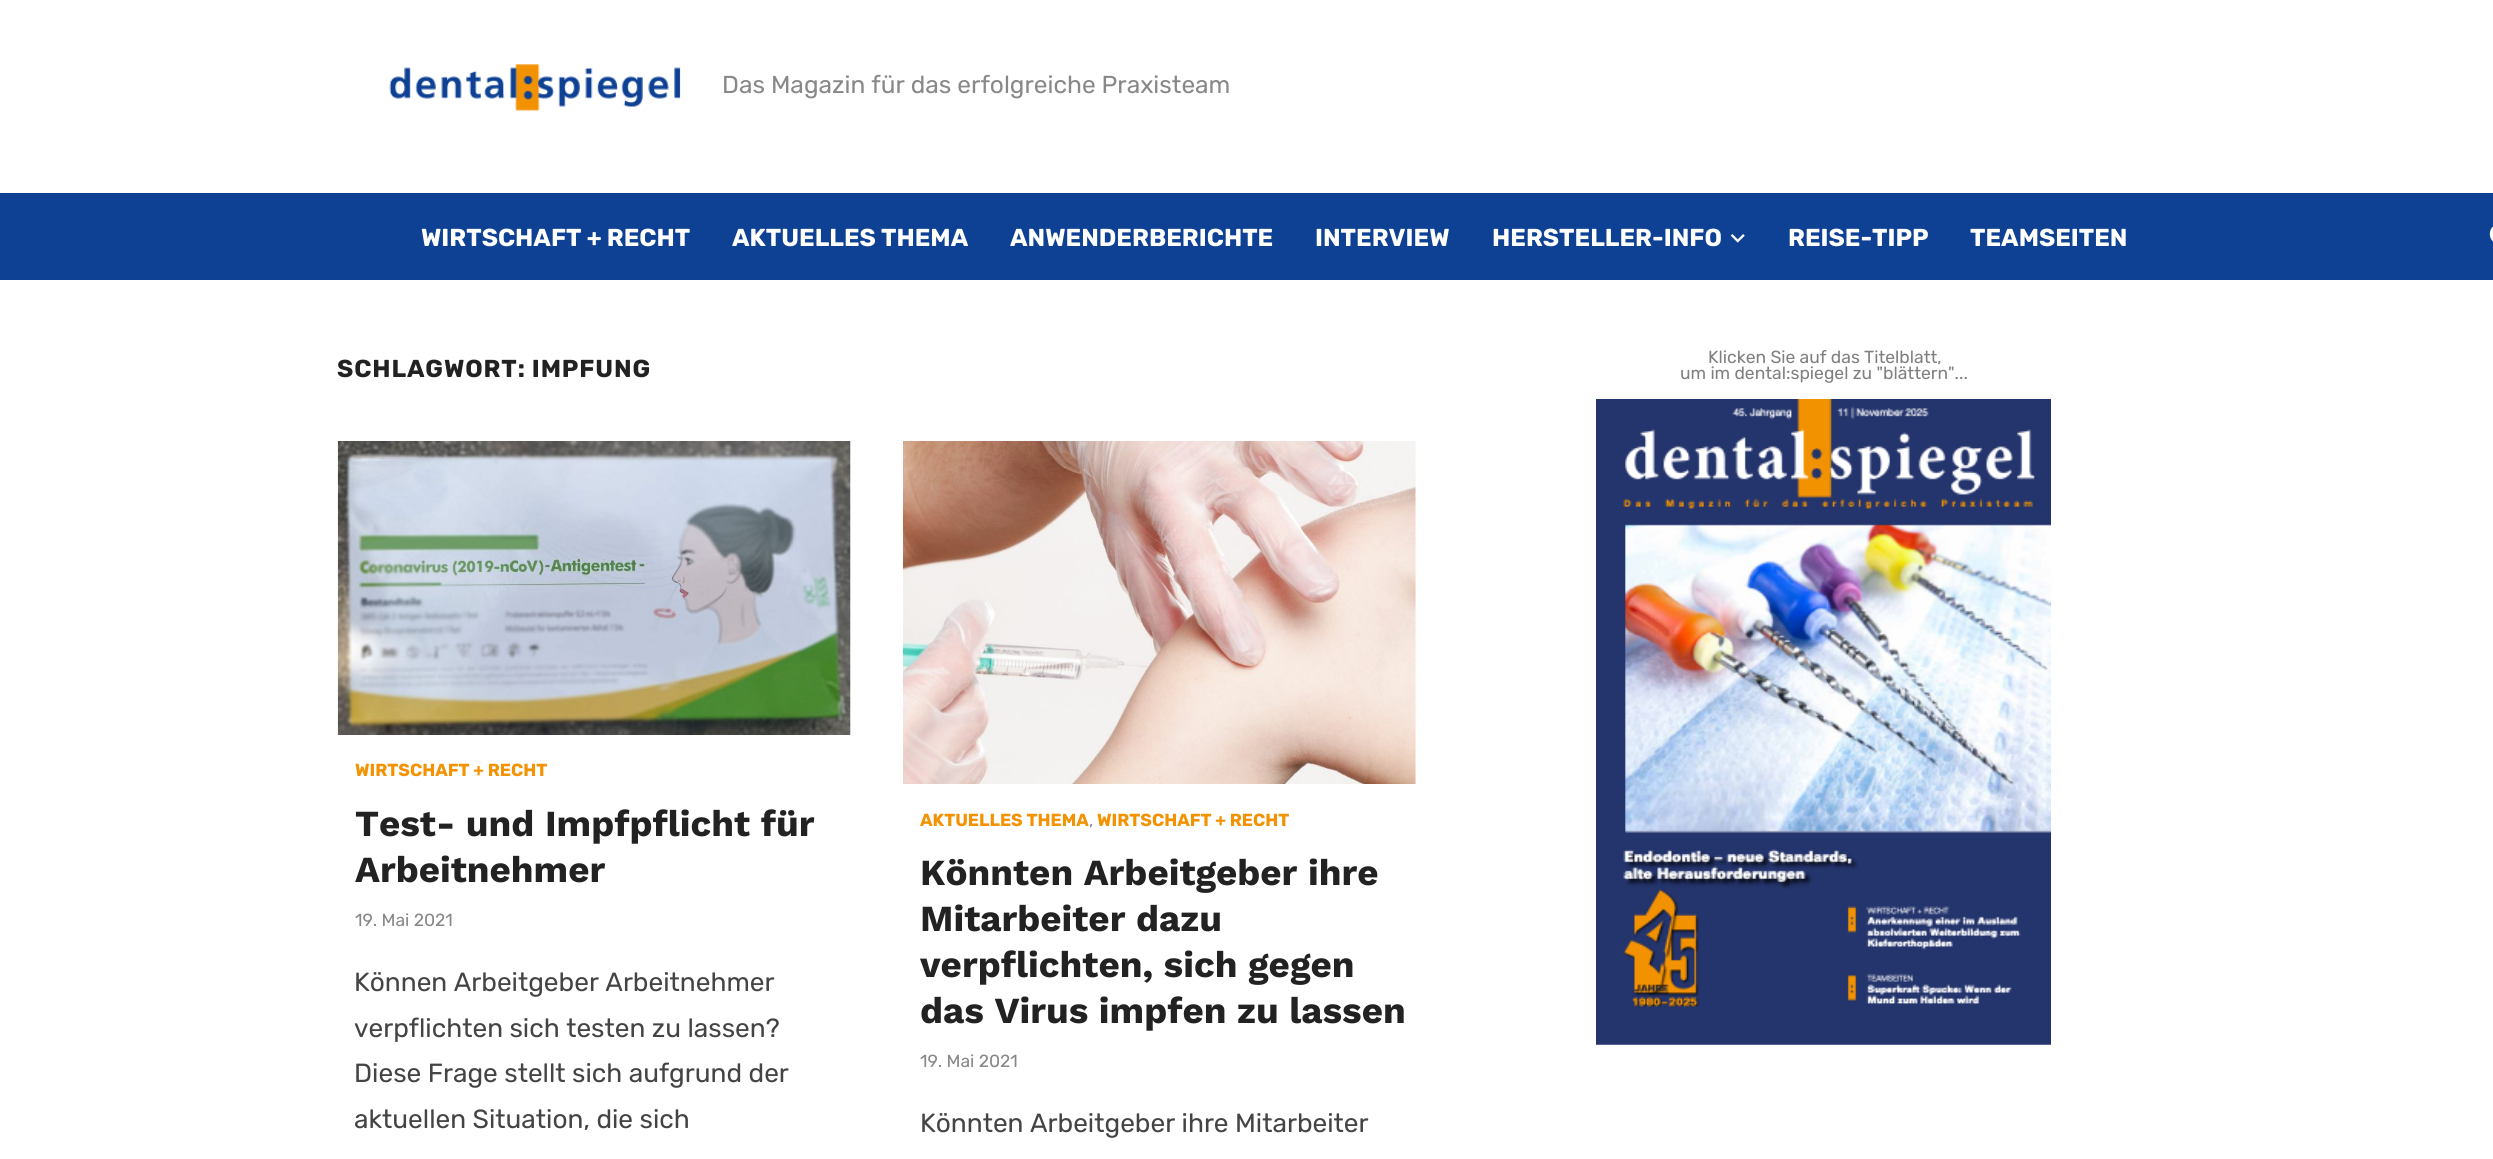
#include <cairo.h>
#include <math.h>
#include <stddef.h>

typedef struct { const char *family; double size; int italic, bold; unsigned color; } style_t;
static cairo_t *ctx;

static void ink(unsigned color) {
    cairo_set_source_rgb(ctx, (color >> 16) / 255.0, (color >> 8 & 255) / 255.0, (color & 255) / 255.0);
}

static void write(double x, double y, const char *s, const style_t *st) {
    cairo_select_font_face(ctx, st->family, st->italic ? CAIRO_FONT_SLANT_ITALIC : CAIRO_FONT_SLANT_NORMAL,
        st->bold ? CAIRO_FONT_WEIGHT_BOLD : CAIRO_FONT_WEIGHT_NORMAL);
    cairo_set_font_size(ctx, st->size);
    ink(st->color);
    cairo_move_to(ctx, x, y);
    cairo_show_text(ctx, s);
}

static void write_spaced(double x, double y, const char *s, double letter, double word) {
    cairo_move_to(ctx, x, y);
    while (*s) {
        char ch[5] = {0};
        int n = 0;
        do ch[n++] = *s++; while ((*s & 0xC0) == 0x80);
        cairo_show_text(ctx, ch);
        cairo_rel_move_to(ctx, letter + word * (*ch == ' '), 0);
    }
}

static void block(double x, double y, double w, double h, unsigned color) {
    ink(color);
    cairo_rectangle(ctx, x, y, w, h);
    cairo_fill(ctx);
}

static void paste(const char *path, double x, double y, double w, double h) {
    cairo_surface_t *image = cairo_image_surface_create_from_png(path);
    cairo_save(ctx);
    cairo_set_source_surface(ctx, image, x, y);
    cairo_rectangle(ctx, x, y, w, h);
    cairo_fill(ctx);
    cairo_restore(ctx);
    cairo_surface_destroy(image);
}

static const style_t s1 = {"Rubik", 24.5, 0, 0, 0x888888};
static const style_t s2 = {"Rubik", 24.5, 0, 1, 0xffffff};
static const style_t s3 = {"Rubik", 17.5, 0, 1, 0xf39202};
static const style_t s4 = {"Work Sans", 36.75, 0, 1, 0x222222};
static const style_t s5 = {"Rubik", 17.5, 0, 0, 0x888888};
static const style_t s6 = {"Rubik", 26.25, 0, 0, 0x444444};
static const style_t s7 = {"Rubik", 17.5, 0, 0, 0x808080};

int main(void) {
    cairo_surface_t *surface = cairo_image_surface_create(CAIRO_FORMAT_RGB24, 2493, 1159);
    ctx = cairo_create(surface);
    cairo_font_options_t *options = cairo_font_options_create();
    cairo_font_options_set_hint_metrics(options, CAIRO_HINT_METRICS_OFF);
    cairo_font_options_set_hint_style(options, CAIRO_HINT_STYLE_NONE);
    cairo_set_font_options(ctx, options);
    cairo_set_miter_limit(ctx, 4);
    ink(0xffffff);
    cairo_paint(ctx);
    paste("pic1.png", 389, 64, 292, 48);
    write(722, 93, "Das Magazin für das erfolgreiche Praxisteam", &s1);
    block(0, 193, 2493, 87, 0x0e4194);
    write(421, 246, "WIRTSCHAFT + RECHT", &s2);
    write(732, 246, "AKTUELLES THEMA", &s2);
    write(1010, 246, "ANWENDERBERICHTE", &s2);
    write(1315, 246, "INTERVIEW", &s2);
    write(1492, 246, "HERSTELLER-INFO", &s2);
    paste("pic2.png", 1730, 234, 15, 9);
    write(1788, 246, "REISE-TIPP", &s2);
    write(1970, 246, "TEAMSEITEN", &s2);
    paste("pic3.png", 2489, 226, 4, 16);
    ink(0x222222);
    write_spaced(337, 377, "SCHLAGWORT: IMPFUNG", 0.9, 0);
    paste("pic4.png", 337, 441, 514, 294);
    write(355, 776, "WIRTSCHAFT + RECHT", &s3);
    write(355, 836, "Test- und Impfpflicht für", &s4);
    write(355, 882, "Arbeitnehmer", &s4);
    write(355, 926, "19. Mai 2021", &s5);
    write(354, 991, "Können Arbeitgeber Arbeitnehmer", &s6);
    write(354, 1037, "verpflichten sich testen zu lassen?", &s6);
    write(354, 1082, "Diese Frage stellt sich aufgrund der", &s6);
    write(354, 1128, "aktuellen Situation, die sich", &s6);
    paste("pic5.png", 903, 441, 513, 343);
    write(920, 826, "AKTUELLES THEMA", &s3);
    write(1089, 826, ",", &s5);
    write(1097, 826, "WIRTSCHAFT + RECHT", &s3);
    write(920, 885, "Könnten Arbeitgeber ihre", &s4);
    write(920, 931, "Mitarbeiter dazu", &s4);
    write(920, 977, "verpflichten, sich gegen", &s4);
    write(920, 1023, "das Virus impfen zu lassen", &s4);
    write(920, 1067, "19. Mai 2021", &s5);
    write(920, 1132, "Könnten Arbeitgeber ihre Mitarbeiter", &s6);
    write(1708, 363, "Klicken Sie auf das Titelblatt,", &s7);
    write(1680, 379, "um im dental:spiegel zu \"blättern\"...", &s7);
    paste("pic6.png", 1596, 399, 455, 646);
    cairo_surface_write_to_png(surface, "screenshot.png");
    cairo_font_options_destroy(options);
    cairo_destroy(ctx);
    cairo_surface_destroy(surface);
    return 0;
}
